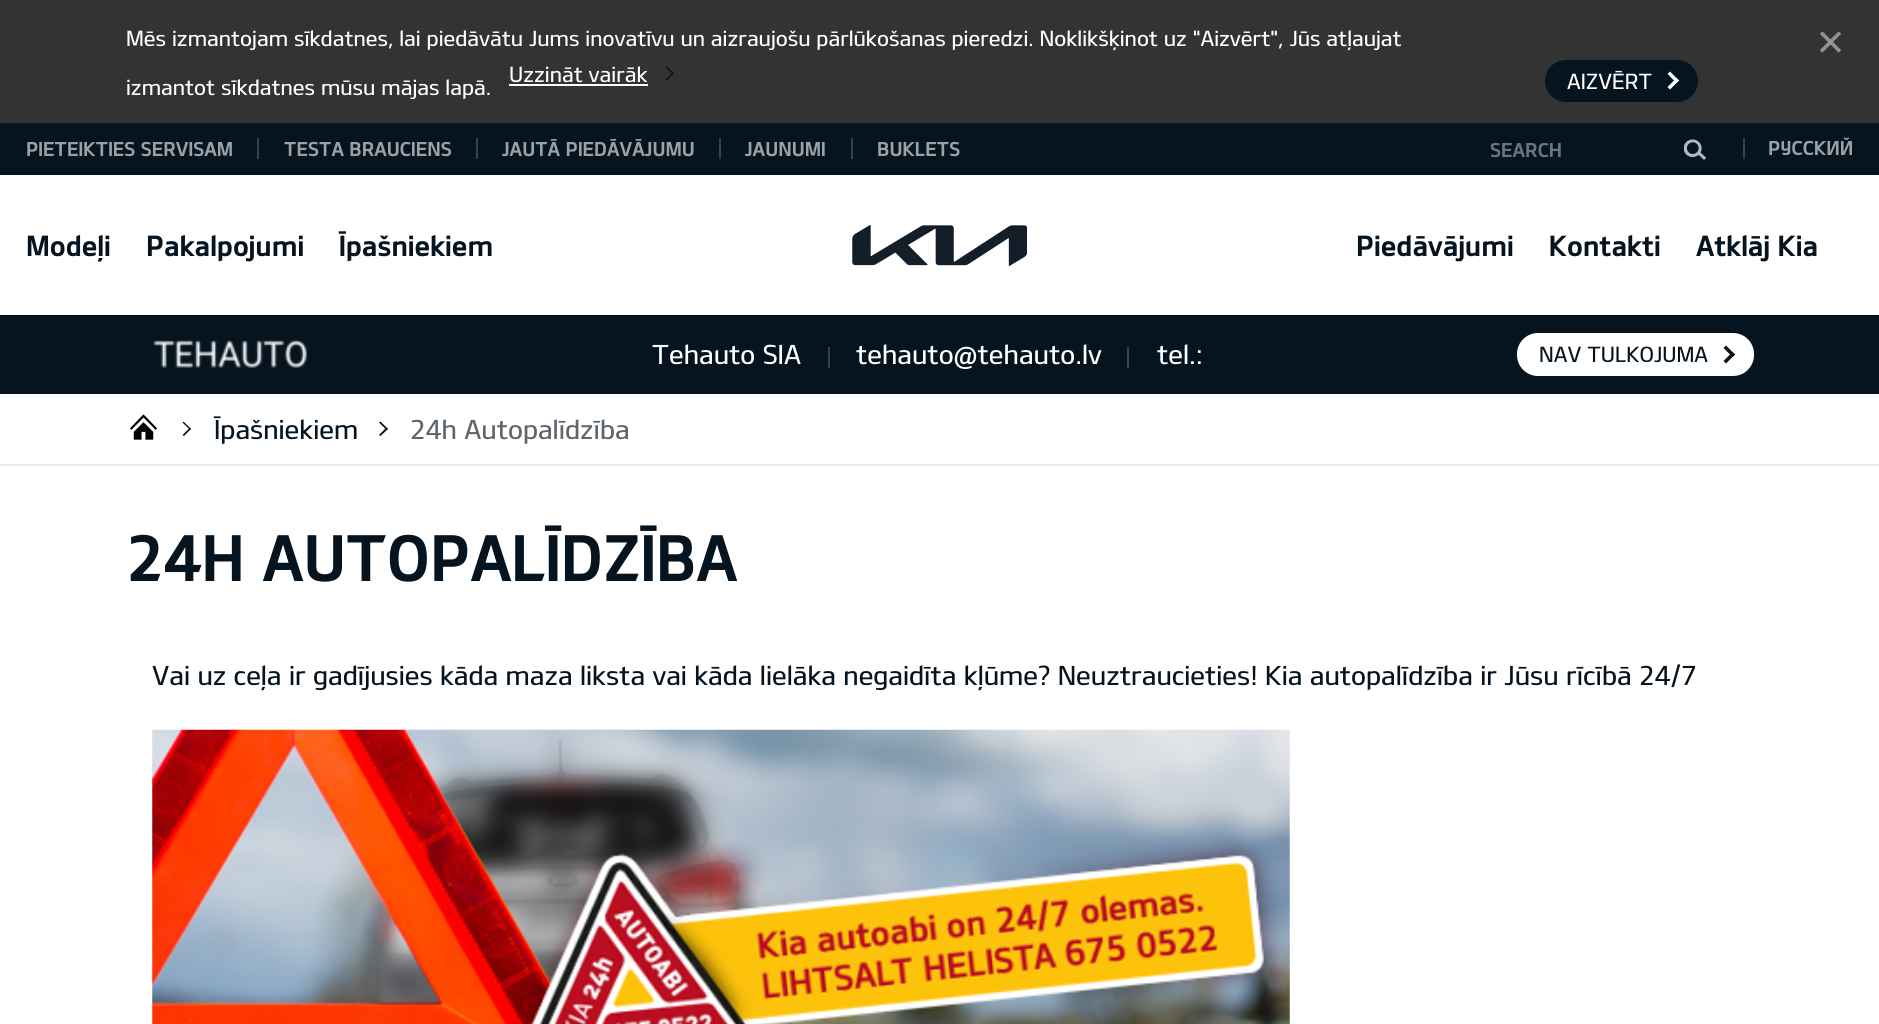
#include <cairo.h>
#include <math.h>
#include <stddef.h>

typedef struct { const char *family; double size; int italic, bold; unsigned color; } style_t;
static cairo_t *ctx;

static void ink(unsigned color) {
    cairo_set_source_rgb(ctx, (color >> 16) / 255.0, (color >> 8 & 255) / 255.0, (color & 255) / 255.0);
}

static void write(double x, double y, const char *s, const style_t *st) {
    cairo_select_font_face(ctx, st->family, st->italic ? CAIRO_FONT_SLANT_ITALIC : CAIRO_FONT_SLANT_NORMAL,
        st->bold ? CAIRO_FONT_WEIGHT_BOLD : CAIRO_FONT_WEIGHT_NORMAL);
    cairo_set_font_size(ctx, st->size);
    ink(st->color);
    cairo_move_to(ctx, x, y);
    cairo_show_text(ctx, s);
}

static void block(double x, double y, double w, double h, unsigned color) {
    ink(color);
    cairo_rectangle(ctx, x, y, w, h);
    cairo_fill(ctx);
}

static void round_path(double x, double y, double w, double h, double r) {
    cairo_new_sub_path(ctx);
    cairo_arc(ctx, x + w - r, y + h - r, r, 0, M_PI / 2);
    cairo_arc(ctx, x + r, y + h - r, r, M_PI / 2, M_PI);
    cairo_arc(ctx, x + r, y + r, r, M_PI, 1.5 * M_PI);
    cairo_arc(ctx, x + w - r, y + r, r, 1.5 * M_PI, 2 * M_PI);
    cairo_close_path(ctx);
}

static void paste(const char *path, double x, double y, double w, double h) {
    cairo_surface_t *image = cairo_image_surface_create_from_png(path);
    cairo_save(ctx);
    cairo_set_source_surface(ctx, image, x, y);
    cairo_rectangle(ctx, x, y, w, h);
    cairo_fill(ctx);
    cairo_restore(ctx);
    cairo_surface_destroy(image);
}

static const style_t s1 = {"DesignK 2", 21, 0, 0, 0xffffff};
static const style_t s2 = {"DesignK", 19.25, 0, 0, 0x9ba1a5};
static const style_t s3 = {"DesignK", 19.25, 0, 0, 0x6c757d};
static const style_t s4 = {"DesignK", 28, 0, 0, 0x05141f};
static const style_t s5 = {"DesignK 2", 26.25, 0, 0, 0xffffff};
static const style_t s6 = {"DesignK 2", 21, 0, 0, 0x05141f};
static const style_t s7 = {"DesignK 2", 26.25, 0, 0, 0x05141f};
static const style_t s8 = {"DesignK 2", 26.25, 0, 0, 0x5d666d};
static const style_t s9 = {"DesignK", 63, 0, 0, 0x05141f};

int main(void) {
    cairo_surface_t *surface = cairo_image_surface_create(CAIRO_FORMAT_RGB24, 1879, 1024);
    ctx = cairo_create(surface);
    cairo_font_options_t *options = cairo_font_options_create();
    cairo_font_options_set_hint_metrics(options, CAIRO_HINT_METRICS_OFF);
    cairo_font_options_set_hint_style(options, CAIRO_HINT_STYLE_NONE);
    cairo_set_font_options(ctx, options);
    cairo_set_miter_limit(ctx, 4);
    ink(0xffffff);
    cairo_paint(ctx);
    block(0, 0, 1879, 123, 0x333333);
    write(126, 46, "Mēs izmantojam sīkdatnes, lai piedāvātu Jums inovatīvu un aizraujošu pārlūkošanas pieredzi. Noklikšķinot uz \"Aizvērt\", Jūs atļaujat", &s1);
    write(509, 82, "Uzzināt vairāk", &s1);
    block(509, 84, 139, 2, 0xffffff);
    ink(0x05141f);
    cairo_new_path(ctx);
    cairo_move_to(ctx, 666.5, 66);
    cairo_line_to(ctx, 674, 73.5);
    cairo_line_to(ctx, 673, 74.5);
    cairo_line_to(ctx, 665.5, 67.5);
    cairo_close_path(ctx);
    cairo_fill(ctx);
    cairo_new_path(ctx);
    cairo_move_to(ctx, 673, 72.5);
    cairo_line_to(ctx, 674, 73.5);
    cairo_line_to(ctx, 666.5, 81);
    cairo_line_to(ctx, 665.5, 79.5);
    cairo_close_path(ctx);
    cairo_fill(ctx);
    write(126, 95, "izmantot sīkdatnes mūsu mājas lapā.", &s1);
    ink(0x05141f);
    round_path(1545, 60, 153, 42, 21);
    cairo_fill(ctx);
    write(1567, 89, "AIZVĒRT", &s1);
    cairo_new_path(ctx);
    cairo_move_to(ctx, 1670, 71.5);
    cairo_line_to(ctx, 1679, 80.5);
    cairo_line_to(ctx, 1676.5, 83);
    cairo_line_to(ctx, 1667.5, 74);
    cairo_close_path(ctx);
    cairo_fill(ctx);
    cairo_new_path(ctx);
    cairo_move_to(ctx, 1676.5, 78);
    cairo_line_to(ctx, 1679, 80.5);
    cairo_line_to(ctx, 1670, 89.5);
    cairo_line_to(ctx, 1667.5, 87);
    cairo_close_path(ctx);
    cairo_fill(ctx);
    ink(0x999999);
    cairo_new_path(ctx);
    cairo_move_to(ctx, 1820, 50);
    cairo_line_to(ctx, 1838.5, 31.5);
    cairo_line_to(ctx, 1840, 32.5);
    cairo_line_to(ctx, 1821, 51.5);
    cairo_close_path(ctx);
    cairo_fill(ctx);
    cairo_new_path(ctx);
    cairo_move_to(ctx, 1821, 51.5);
    cairo_line_to(ctx, 1840, 32.5);
    cairo_line_to(ctx, 1841, 34);
    cairo_line_to(ctx, 1822.5, 52.5);
    cairo_close_path(ctx);
    cairo_fill(ctx);
    cairo_new_path(ctx);
    cairo_move_to(ctx, 1822.5, 31.5);
    cairo_line_to(ctx, 1841, 50);
    cairo_line_to(ctx, 1840, 51.5);
    cairo_line_to(ctx, 1821, 32.5);
    cairo_close_path(ctx);
    cairo_fill(ctx);
    cairo_new_path(ctx);
    cairo_move_to(ctx, 1821, 32.5);
    cairo_line_to(ctx, 1840, 51.5);
    cairo_line_to(ctx, 1838.5, 52.5);
    cairo_line_to(ctx, 1820, 34);
    cairo_close_path(ctx);
    cairo_fill(ctx);
    ink(0x05121c);
    cairo_new_path(ctx);
    cairo_move_to(ctx, 0, 315);
    cairo_line_to(ctx, 0, 317);
    cairo_line_to(ctx, 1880, 317);
    cairo_line_to(ctx, 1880, 177);
    cairo_line_to(ctx, 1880, 315);
    cairo_close_path(ctx);
    cairo_fill(ctx);
    block(0, 123, 1879, 52, 0x05141f);
    write(26, 156, "PIETEIKTIES SERVISAM", &s2);
    block(257, 138, 2, 21, 0x35424a);
    write(284, 156, "TESTA BRAUCIENS", &s2);
    block(476, 138, 2, 21, 0x35424a);
    write(502, 156, "JAUTĀ PIEDĀVĀJUMU", &s2);
    block(719, 138, 2, 21, 0x35424a);
    write(745, 156, "JAUNUMI", &s2);
    block(851, 138, 2, 21, 0x35424a);
    write(877, 156, "BUKLETS", &s2);
    write(1490, 157, "SEARCH", &s3);
    paste("pic1.png", 1684, 139, 22, 21);
    block(1743, 138, 2, 21, 0x35424a);
    write(1768, 155, "РУССКИЙ", &s2);
    write(26, 256, "Modeļi", &s4);
    write(146, 256, "Pakalpojumi", &s4);
    write(339, 256, "Īpašniekiem", &s4);
    write(1356, 256, "Piedāvājumi", &s4);
    write(1549, 256, "Kontakti", &s4);
    write(1696, 256, "Atklāj Kia", &s4);
    paste("pic2.png", 852, 224, 175, 42);
    block(0, 317, 1879, 77, 0x05141f);
    paste("pic3.png", 153, 339, 155, 29);
    write(652, 364, "Tehauto SIA", &s5);
    block(828, 347, 2, 21, 0x35424a);
    write(856, 364, "tehauto@tehauto.lv", &s5);
    block(1127, 347, 2, 21, 0x35424a);
    write(1157, 364, "tel.:", &s5);
    round_path(1517, 333, 237, 43, 21);
    cairo_fill(ctx);
    write(1539, 362, "NAV TULKOJUMA", &s6);
    cairo_new_path(ctx);
    cairo_move_to(ctx, 1726, 345.5);
    cairo_line_to(ctx, 1735, 354.5);
    cairo_line_to(ctx, 1732.5, 357);
    cairo_line_to(ctx, 1723.5, 348);
    cairo_close_path(ctx);
    cairo_fill(ctx);
    cairo_new_path(ctx);
    cairo_move_to(ctx, 1732.5, 352);
    cairo_line_to(ctx, 1735, 354.5);
    cairo_line_to(ctx, 1726, 363.5);
    cairo_line_to(ctx, 1723.5, 361);
    cairo_close_path(ctx);
    cairo_fill(ctx);
    block(0, 464, 1879, 2, 0xe9e9e9);
    paste("pic4.png", 130, 414, 27, 26);
    ink(0x05141f);
    cairo_new_path(ctx);
    cairo_move_to(ctx, 183.5, 421.5);
    cairo_line_to(ctx, 191, 429);
    cairo_line_to(ctx, 190, 430);
    cairo_line_to(ctx, 182.5, 422.5);
    cairo_close_path(ctx);
    cairo_fill(ctx);
    cairo_new_path(ctx);
    cairo_move_to(ctx, 190, 427.5);
    cairo_line_to(ctx, 191, 429);
    cairo_line_to(ctx, 184, 436);
    cairo_line_to(ctx, 182.5, 435);
    cairo_close_path(ctx);
    cairo_fill(ctx);
    write(214, 439, "Īpašniekiem", &s7);
    cairo_new_path(ctx);
    cairo_move_to(ctx, 380.5, 421.5);
    cairo_line_to(ctx, 388, 429);
    cairo_line_to(ctx, 386.5, 430);
    cairo_line_to(ctx, 379, 422.5);
    cairo_close_path(ctx);
    cairo_fill(ctx);
    cairo_new_path(ctx);
    cairo_move_to(ctx, 386.5, 427.5);
    cairo_line_to(ctx, 388, 429);
    cairo_line_to(ctx, 380.5, 436);
    cairo_line_to(ctx, 379, 435);
    cairo_close_path(ctx);
    cairo_fill(ctx);
    write(410, 439, "24h Autopalīdzība", &s8);
    write(126, 581, "24H AUTOPALĪDZĪBA", &s9);
    write(152, 685, "Vai uz ceļa ir gadījusies kāda maza liksta vai kāda lielāka negaidīta kļūme? Neuztraucieties! Kia autopalīdzība ir Jūsu rīcībā 24/7", &s7);
    paste("pic5.png", 152, 729, 1138, 295);
    cairo_surface_write_to_png(surface, "screenshot.png");
    cairo_font_options_destroy(options);
    cairo_destroy(ctx);
    cairo_surface_destroy(surface);
    return 0;
}
